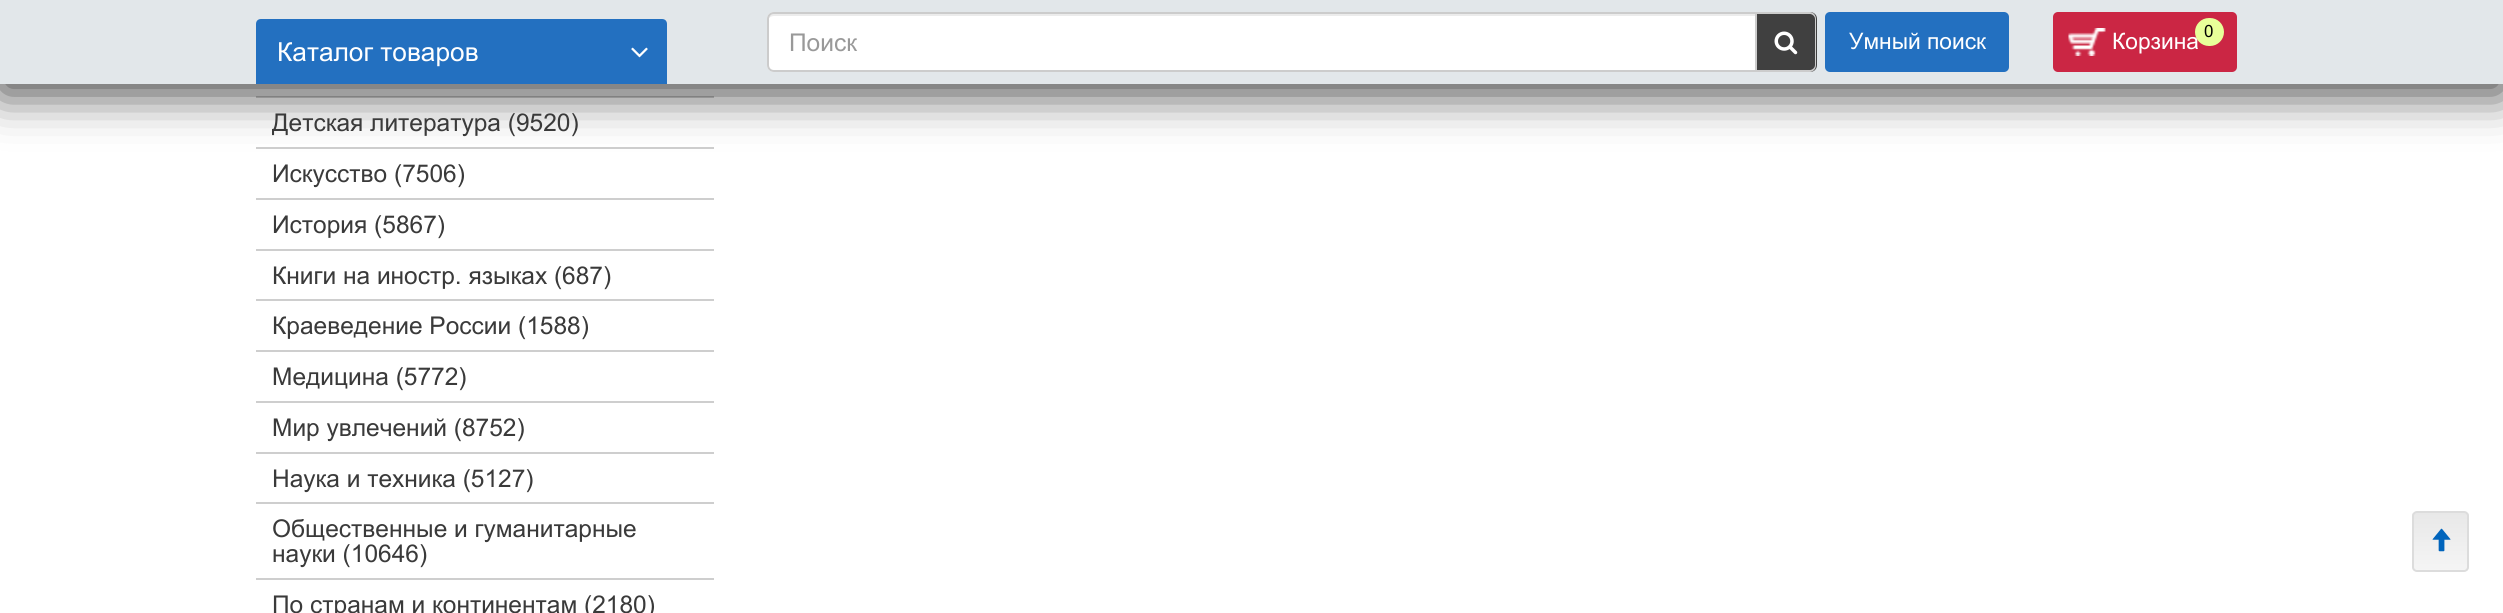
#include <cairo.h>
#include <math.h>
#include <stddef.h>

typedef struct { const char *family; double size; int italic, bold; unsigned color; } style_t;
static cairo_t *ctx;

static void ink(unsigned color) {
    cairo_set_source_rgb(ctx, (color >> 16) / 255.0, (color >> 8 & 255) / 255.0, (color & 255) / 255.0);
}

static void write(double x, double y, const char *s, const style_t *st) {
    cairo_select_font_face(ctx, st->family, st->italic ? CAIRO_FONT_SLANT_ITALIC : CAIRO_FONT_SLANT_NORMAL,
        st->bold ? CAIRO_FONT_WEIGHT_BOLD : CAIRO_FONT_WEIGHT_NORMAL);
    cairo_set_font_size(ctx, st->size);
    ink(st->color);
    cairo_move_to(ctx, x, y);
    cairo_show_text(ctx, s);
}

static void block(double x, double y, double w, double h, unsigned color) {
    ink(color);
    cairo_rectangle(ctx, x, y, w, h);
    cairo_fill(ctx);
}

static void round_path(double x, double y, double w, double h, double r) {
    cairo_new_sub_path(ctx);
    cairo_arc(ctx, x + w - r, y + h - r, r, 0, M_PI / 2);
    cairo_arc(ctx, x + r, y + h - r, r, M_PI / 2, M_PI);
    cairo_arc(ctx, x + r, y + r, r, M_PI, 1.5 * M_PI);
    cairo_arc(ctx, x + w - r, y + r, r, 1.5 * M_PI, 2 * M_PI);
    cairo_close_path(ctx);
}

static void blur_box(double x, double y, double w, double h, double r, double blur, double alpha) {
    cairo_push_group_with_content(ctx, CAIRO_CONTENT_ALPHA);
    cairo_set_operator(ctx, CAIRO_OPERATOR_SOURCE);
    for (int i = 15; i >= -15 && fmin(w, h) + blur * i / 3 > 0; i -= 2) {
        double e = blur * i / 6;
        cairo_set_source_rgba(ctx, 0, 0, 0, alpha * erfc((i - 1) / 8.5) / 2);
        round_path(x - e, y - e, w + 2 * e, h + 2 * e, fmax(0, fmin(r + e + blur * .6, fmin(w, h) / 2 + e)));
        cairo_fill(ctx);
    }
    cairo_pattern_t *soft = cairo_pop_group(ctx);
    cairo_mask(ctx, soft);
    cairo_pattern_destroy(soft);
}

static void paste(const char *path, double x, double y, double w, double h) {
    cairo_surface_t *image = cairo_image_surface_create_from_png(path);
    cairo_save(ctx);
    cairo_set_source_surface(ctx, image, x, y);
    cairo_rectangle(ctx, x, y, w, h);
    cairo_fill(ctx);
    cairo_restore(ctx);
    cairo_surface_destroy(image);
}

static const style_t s1 = {"Arial", 26.25, 0, 0, 0xffffff};
static const style_t s2 = {"Arial", 24.5, 0, 0, 0x999999};
static const style_t s3 = {"Arial", 22.75, 0, 0, 0xffffff};
static const style_t s4 = {"Arial", 17, 0, 0, 0x000000};
static const style_t s5 = {"Arial", 24.5, 0, 0, 0x3a3a3a};

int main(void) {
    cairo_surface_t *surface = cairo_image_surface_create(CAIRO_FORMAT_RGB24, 2503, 613);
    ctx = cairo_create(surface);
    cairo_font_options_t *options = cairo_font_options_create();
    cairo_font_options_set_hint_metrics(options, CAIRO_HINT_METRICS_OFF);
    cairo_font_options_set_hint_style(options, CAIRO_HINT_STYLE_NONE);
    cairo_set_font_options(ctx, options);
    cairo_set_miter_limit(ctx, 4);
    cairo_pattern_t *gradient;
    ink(0xffffff);
    cairo_paint(ctx);
    block(256, 96, 458, 2, 0xcecece);
    block(256, 147, 458, 2, 0xcecece);
    ink(0x000000);
    blur_box(0, 9, 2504, 84, 0, 23.5, 0.75);
    block(0, 0, 2503, 84, 0xe2e7ea);
    ink(0x2370c0);
    cairo_new_path(ctx);
    cairo_move_to(ctx, 261, 19);
    cairo_line_to(ctx, 662, 19);
    cairo_curve_to(ctx, 665, 19, 667, 21, 667, 24);
    cairo_line_to(ctx, 667, 84);
    cairo_line_to(ctx, 256, 84);
    cairo_line_to(ctx, 256, 24);
    cairo_curve_to(ctx, 256, 21, 258, 19, 261, 19);
    cairo_close_path(ctx);
    cairo_fill(ctx);
    write(277, 61, "Каталог товаров", &s1);
    paste("pic1.png", 631, 47, 17, 11);
    cairo_new_path(ctx);
    cairo_move_to(ctx, 774, 12);
    cairo_line_to(ctx, 1757, 12);
    cairo_line_to(ctx, 1757, 72);
    cairo_line_to(ctx, 774, 72);
    cairo_curve_to(ctx, 770, 72, 767, 69, 767, 65);
    cairo_line_to(ctx, 767, 19);
    cairo_curve_to(ctx, 767, 15, 770, 12, 774, 12);
    cairo_close_path(ctx);
    cairo_fill(ctx);
    ink(0xececec);
    cairo_new_path(ctx);
    cairo_move_to(ctx, 774, 16);
    cairo_line_to(ctx, 1755, 16);
    cairo_line_to(ctx, 1755, 14);
    cairo_line_to(ctx, 773, 14);
    cairo_curve_to(ctx, 769, 14, 768, 18, 768, 21);
    cairo_curve_to(ctx, 768, 18, 771, 16, 774, 16);
    cairo_close_path(ctx);
    cairo_fill(ctx);
    cairo_new_path(ctx);
    cairo_move_to(ctx, 774, 13);
    cairo_line_to(ctx, 1756, 13);
    cairo_line_to(ctx, 1756, 71);
    cairo_line_to(ctx, 774, 71);
    cairo_curve_to(ctx, 770.5, 71, 768, 68.5, 768, 65);
    cairo_line_to(ctx, 768, 19);
    cairo_curve_to(ctx, 768, 15.5, 770.5, 13, 774, 13);
    cairo_close_path(ctx);
    ink(0xcccccc);
    cairo_stroke(ctx);
    write(789, 51, "Поиск", &s2);
    ink(0x404040);
    cairo_new_path(ctx);
    cairo_move_to(ctx, 1757, 12);
    cairo_line_to(ctx, 1810, 12);
    cairo_curve_to(ctx, 1814, 12, 1817, 15, 1817, 19);
    cairo_line_to(ctx, 1817, 65);
    cairo_curve_to(ctx, 1817, 69, 1814, 72, 1810, 72);
    cairo_line_to(ctx, 1757, 72);
    cairo_close_path(ctx);
    cairo_fill(ctx);
    ink(0xcccccc);
    cairo_set_fill_rule(ctx, CAIRO_FILL_RULE_EVEN_ODD);
    cairo_new_path(ctx);
    cairo_move_to(ctx, 1757, 12);
    cairo_line_to(ctx, 1810, 12);
    cairo_curve_to(ctx, 1813, 12, 1816, 15, 1816, 19);
    cairo_line_to(ctx, 1816, 65);
    cairo_curve_to(ctx, 1816, 69, 1813, 72, 1810, 72);
    cairo_line_to(ctx, 1757, 72);
    cairo_close_path(ctx);
    cairo_move_to(ctx, 1757, 14);
    cairo_line_to(ctx, 1810, 14);
    cairo_curve_to(ctx, 1812, 14, 1815, 16, 1815, 19);
    cairo_line_to(ctx, 1815, 65);
    cairo_curve_to(ctx, 1815, 68, 1812, 70, 1810, 70);
    cairo_line_to(ctx, 1757, 70);
    cairo_close_path(ctx);
    cairo_fill(ctx);
    paste("pic2.png", 1774, 31, 24, 24);
    ink(0x2370c0);
    round_path(1825, 12, 184, 60, 5);
    cairo_fill(ctx);
    write(1849, 49, "Умный поиск", &s3);
    ink(0xcb2644);
    round_path(2053, 12, 184, 60, 5);
    cairo_fill(ctx);
    paste("pic3.png", 2068, 28, 38, 28);
    write(2112, 49, "Корзина", &s3);
    ink(0xe8ff99);
    round_path(2195, 18, 29, 28, 14);
    cairo_fill(ctx);
    write(2204, 37, "0", &s4);
    write(272, 131, "Детская литература (9520)", &s5);
    block(256, 198, 458, 2, 0xcecece);
    write(272, 182, "Искусство (7506)", &s5);
    block(256, 249, 458, 2, 0xcecece);
    write(272, 233, "История (5867)", &s5);
    block(256, 299, 458, 2, 0xcecece);
    write(272, 284, "Книги на иностр. языках (687)", &s5);
    block(256, 350, 458, 2, 0xcecece);
    write(272, 334, "Краеведение России (1588)", &s5);
    block(256, 401, 458, 2, 0xcecece);
    write(272, 385, "Медицина (5772)", &s5);
    block(256, 452, 458, 2, 0xcecece);
    write(272, 436, "Мир увлечений (8752)", &s5);
    block(256, 502, 458, 2, 0xcecece);
    write(272, 487, "Наука и техника (5127)", &s5);
    block(256, 578, 458, 2, 0xcecece);
    write(272, 537, "Общественные и гуманитарные", &s5);
    write(272, 562, "науки (10646)", &s5);
    write(272, 613, "По странам и континентам (2180)", &s5);
    cairo_save(ctx);
    cairo_set_fill_rule(ctx, CAIRO_FILL_RULE_WINDING);
    round_path(2412, 511, 57, 61, 5);
    cairo_clip(ctx);
    gradient = cairo_pattern_create_linear(2440, 513, 2440, 571);
    cairo_pattern_add_color_stop_rgba(gradient, 0, 0.91, 0.91, 0.91, 1);
    cairo_pattern_add_color_stop_rgba(gradient, 1, 0.961, 0.961, 0.961, 1);
    cairo_set_source(ctx, gradient);
    cairo_pattern_destroy(gradient);
    cairo_rectangle(ctx, 2412, 513, 57, 58);
    cairo_fill(ctx);
    cairo_restore(ctx);
    round_path(2413, 512, 55, 59, 4);
    ink(0xdcdcdc);
    cairo_stroke(ctx);
    paste("pic4.png", 2432, 528, 19, 24);
    cairo_surface_write_to_png(surface, "screenshot.png");
    cairo_font_options_destroy(options);
    cairo_destroy(ctx);
    cairo_surface_destroy(surface);
    return 0;
}
